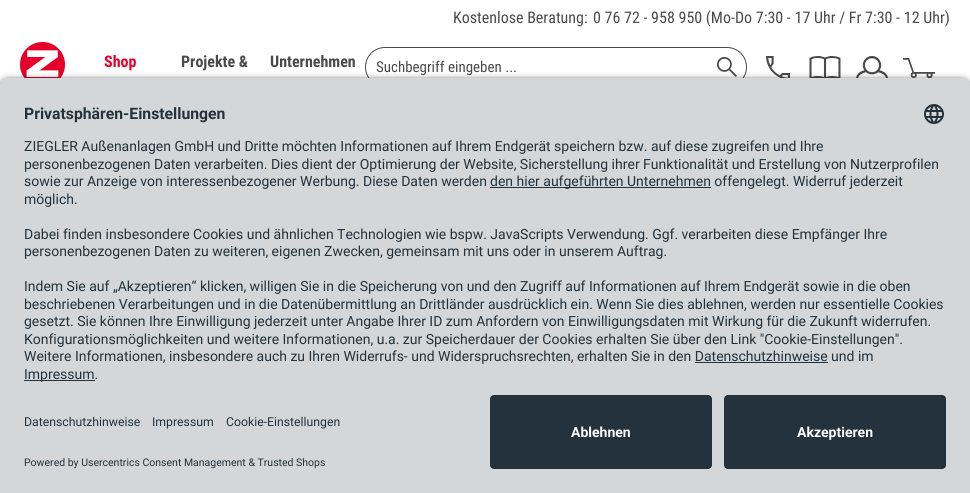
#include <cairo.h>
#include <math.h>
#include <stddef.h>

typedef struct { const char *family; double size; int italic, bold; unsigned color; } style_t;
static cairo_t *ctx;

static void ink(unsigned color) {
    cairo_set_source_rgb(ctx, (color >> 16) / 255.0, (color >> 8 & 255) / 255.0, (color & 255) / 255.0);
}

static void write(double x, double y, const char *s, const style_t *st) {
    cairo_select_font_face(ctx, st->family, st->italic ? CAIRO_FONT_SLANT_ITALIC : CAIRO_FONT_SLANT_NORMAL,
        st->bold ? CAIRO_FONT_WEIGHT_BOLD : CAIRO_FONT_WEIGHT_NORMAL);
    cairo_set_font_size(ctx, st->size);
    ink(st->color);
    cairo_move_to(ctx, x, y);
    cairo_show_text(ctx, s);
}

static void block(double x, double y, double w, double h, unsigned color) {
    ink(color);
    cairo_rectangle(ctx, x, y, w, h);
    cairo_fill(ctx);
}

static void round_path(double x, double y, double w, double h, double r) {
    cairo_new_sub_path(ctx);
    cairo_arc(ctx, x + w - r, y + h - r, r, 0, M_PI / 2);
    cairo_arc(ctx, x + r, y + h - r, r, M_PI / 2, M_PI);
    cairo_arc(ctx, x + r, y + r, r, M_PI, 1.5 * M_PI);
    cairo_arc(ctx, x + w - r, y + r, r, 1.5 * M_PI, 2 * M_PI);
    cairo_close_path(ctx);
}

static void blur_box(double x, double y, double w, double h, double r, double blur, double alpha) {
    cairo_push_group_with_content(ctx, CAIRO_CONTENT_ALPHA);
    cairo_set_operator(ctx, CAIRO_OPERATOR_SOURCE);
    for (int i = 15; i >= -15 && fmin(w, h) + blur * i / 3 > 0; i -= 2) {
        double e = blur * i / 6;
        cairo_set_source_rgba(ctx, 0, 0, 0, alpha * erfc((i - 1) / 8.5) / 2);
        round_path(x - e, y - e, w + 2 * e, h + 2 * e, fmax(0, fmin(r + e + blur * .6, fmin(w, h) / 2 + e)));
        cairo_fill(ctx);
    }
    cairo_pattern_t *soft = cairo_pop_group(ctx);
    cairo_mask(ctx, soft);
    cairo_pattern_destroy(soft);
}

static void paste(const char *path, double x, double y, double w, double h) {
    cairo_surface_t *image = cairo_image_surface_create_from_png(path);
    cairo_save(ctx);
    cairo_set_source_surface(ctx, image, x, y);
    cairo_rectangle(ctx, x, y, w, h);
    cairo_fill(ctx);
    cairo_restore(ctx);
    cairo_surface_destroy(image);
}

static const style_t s1 = {"Roboto Condensed", 16, 0, 0, 0x4a4a4a};
static const style_t s2 = {"Roboto Condensed", 16, 0, 1, 0xe4002b};
static const style_t s3 = {"Roboto Condensed", 16, 0, 1, 0x4a4a4a};
static const style_t s4 = {"Roboto Condensed", 15, 0, 0, 0x4a4a4a};
static const style_t s5 = {"Roboto", 15.75, 0, 1, 0x23323c};
static const style_t s6 = {"Roboto", 14, 0, 0, 0x23323c};
static const style_t s7 = {"Roboto", 12.25, 0, 0, 0x23323c};
static const style_t s8 = {"Roboto", 10.5, 0, 0, 0x23323c};
static const style_t s9 = {"Roboto", 14, 0, 1, 0xffffff};

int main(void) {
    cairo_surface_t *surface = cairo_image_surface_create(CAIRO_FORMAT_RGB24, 970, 493);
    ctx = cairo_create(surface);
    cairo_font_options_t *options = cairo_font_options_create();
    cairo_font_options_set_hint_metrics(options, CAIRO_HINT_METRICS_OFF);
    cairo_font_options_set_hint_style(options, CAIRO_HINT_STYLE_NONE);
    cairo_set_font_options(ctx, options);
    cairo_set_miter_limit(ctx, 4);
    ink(0xffffff);
    cairo_paint(ctx);
    write(453, 23, "Kostenlose Beratung:", &s1);
    write(593, 23, "0 76 72 - 958 950 (Mo-Do 7:30 - 17 Uhr / Fr 7:30 - 12 Uhr)", &s1);
    paste("pic1.png", 20, 42, 45, 36);
    write(104, 67, "Shop", &s2);
    write(181, 67, "Projekte &", &s3);
    write(270, 67, "Unternehmen", &s3);
    round_path(365.5, 47.5, 381, 39, 19.5);
    cairo_set_line_width(ctx, 1);
    cairo_stroke(ctx);
    write(376, 72, "Suchbegriff eingeben ...", &s4);
    paste("pic2.png", 717, 57, 20, 20);
    paste("pic3.png", 766, 56, 24, 22);
    paste("pic4.png", 809, 56, 32, 22);
    paste("pic5.png", 856, 56, 32, 22);
    paste("pic6.png", 903, 58, 32, 20);
    ink(0x000000);
    blur_box(0, 80, 970, 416, 8, 3.5, 0.8);
    cairo_save(ctx);
    cairo_new_path(ctx);
    cairo_move_to(ctx, 8, 77);
    cairo_line_to(ctx, 962, 77);
    cairo_curve_to(ctx, 966.5, 77, 970, 80.5, 970, 85);
    cairo_line_to(ctx, 970, 387);
    cairo_line_to(ctx, 0, 387);
    cairo_line_to(ctx, 0, 85);
    cairo_curve_to(ctx, 0, 80.5, 3.5, 77, 8, 77);
    cairo_close_path(ctx);
    cairo_clip(ctx);
    block(0, 78, 970, 309, 0xd3d7d9);
    cairo_restore(ctx);
    write(24, 119, "Privatsphären-Einstellungen", &s5);
    paste("pic7.png", 924, 104, 20, 20);
    write(24, 151, "ZIEGLER Außenanlagen GmbH und Dritte möchten Informationen auf Ihrem Endgerät speichern bzw. auf diese zugreifen und Ihre", &s6);
    write(24, 169, "personenbezogenen Daten verarbeiten. Dies dient der Optimierung der Website, Sicherstellung ihrer Funktionalität und Erstellung von Nutzerprofilen", &s6);
    write(24, 186, "sowie zur Anzeige von interessenbezogener Werbung. Diese Daten werden", &s6);
    block(490, 187, 221, 1, 0x23323c);
    write(490, 186, "den hier aufgeführten Unternehmen offengelegt. Widerruf jederzeit", &s6);
    write(24, 204, "möglich.", &s6);
    write(24, 239, "Dabei finden insbesondere Cookies und ähnlichen Technologien wie bspw. JavaScripts Verwendung. Ggf. verarbeiten diese Empfänger Ihre", &s6);
    write(24, 256, "personenbezogenen Daten zu weiteren, eigenen Zwecken, gemeinsam mit uns oder in unserem Auftrag.", &s6);
    write(24, 291, "Indem Sie auf „Akzeptieren“ klicken, willigen Sie in die Speicherung von und den Zugriff auf Informationen auf Ihrem Endgerät sowie in die oben", &s6);
    write(24, 309, "beschriebenen Verarbeitungen und in die Datenübermittlung an Drittländer ausdrücklich ein. Wenn Sie dies ablehnen, werden nur essentielle Cookies", &s6);
    write(24, 326, "gesetzt. Sie können Ihre Einwilligung jederzeit unter Angabe Ihrer ID zum Anfordern von Einwilligungsdaten mit Wirkung für die Zukunft widerrufen.", &s6);
    write(24, 344, "Konfigurationsmöglichkeiten und weitere Informationen, u.a. zur Speicherdauer der Cookies erhalten Sie über den Link \"Cookie-Einstellungen\".", &s6);
    write(24, 361, "Weitere Informationen, insbesondere auch zu Ihren Widerrufs- und Widerspruchsrechten, erhalten Sie in den Datenschutzhinweise und im", &s6);
    block(695, 362, 133, 1, 0x23323c);
    block(24, 380, 71, 1, 0x23323c);
    write(24, 379, "Impressum.", &s6);
    block(0, 387, 970, 106, 0xd3d7d9);
    write(24, 426, "Datenschutzhinweise", &s7);
    write(152, 426, "Impressum", &s7);
    write(226, 426, "Cookie-Einstellungen", &s7);
    write(24, 466, "Powered by Usercentrics Consent Management & Trusted Shops", &s8);
    round_path(490, 395, 222, 74, 4);
    cairo_fill(ctx);
    write(571, 437, "Ablehnen", &s9);
    ink(0x23323c);
    round_path(724, 395, 222, 74, 4);
    cairo_fill(ctx);
    write(797, 437, "Akzeptieren", &s9);
    cairo_surface_write_to_png(surface, "screenshot.png");
    cairo_font_options_destroy(options);
    cairo_destroy(ctx);
    cairo_surface_destroy(surface);
    return 0;
}
